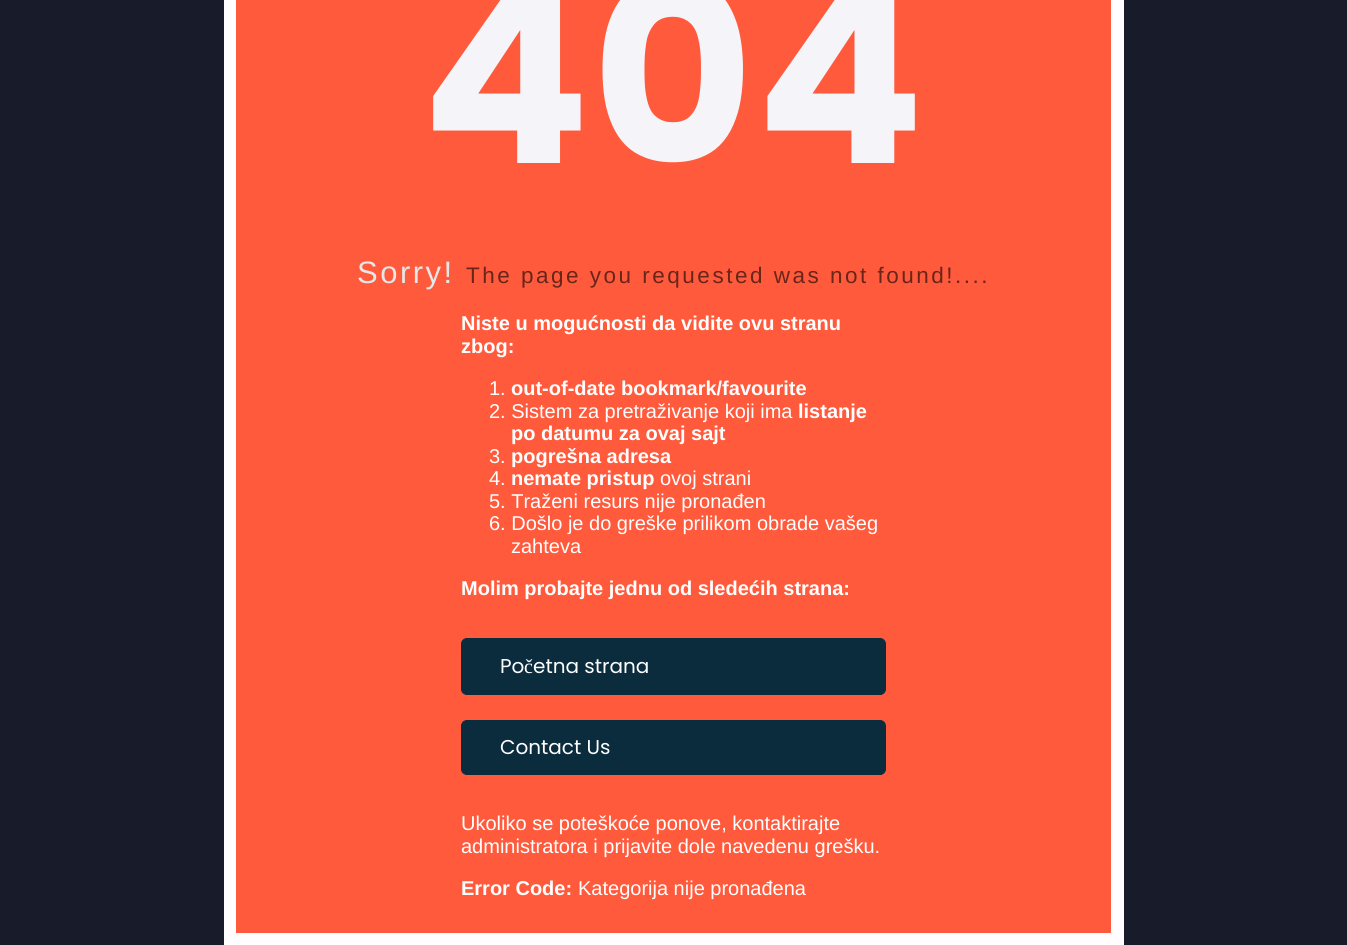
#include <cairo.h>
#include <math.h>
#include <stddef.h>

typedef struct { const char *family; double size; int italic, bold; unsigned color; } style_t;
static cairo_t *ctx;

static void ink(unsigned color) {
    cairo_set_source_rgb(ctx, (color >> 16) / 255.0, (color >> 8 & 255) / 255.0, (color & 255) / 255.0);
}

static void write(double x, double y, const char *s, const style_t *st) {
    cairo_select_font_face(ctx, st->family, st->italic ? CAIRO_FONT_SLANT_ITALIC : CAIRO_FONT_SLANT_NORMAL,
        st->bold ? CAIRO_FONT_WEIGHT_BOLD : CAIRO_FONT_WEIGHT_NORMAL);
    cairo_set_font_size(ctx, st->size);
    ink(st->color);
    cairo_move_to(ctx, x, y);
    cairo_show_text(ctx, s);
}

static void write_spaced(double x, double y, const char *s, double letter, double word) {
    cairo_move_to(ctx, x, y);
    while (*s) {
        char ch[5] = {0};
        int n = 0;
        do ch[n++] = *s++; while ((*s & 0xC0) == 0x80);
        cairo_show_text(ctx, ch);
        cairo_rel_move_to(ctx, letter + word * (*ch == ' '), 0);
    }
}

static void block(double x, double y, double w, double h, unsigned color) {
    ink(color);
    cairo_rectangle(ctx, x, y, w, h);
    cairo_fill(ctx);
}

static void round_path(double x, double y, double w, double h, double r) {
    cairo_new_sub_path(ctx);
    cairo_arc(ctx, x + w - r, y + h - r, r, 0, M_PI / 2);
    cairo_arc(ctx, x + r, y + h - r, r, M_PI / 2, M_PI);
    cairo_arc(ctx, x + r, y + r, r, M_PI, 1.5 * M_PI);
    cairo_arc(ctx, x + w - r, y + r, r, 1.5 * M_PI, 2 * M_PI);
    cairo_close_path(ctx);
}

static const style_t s1 = {"Liberation Sans", 20, 0, 1, 0xffffff};
static const style_t s2 = {"Liberation Sans", 20, 0, 0, 0xffffff};
static const style_t s3 = {"Poppins", 20, 0, 0, 0xffffff};
static const style_t s4 = {"Liberation Serif", 20, 0, 0, 0xffffff};

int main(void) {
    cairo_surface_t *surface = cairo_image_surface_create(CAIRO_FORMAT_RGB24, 1347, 945);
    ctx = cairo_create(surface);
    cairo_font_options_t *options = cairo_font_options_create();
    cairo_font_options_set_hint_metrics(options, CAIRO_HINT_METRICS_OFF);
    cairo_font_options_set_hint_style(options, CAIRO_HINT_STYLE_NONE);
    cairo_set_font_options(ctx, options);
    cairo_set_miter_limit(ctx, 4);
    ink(0x171b2a);
    cairo_paint(ctx);
    cairo_rectangle(ctx, 230.5, -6.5, 887, 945);
    ink(0xfffdfe);
    cairo_set_line_width(ctx, 13);
    cairo_stroke(ctx);
    block(236, 0, 875, 933, 0xff5a3c);
    cairo_select_font_face(ctx, "Poppins", CAIRO_FONT_SLANT_NORMAL, CAIRO_FONT_WEIGHT_BOLD);
    cairo_set_font_size(ctx, 250);
    ink(0xf4f4f9);
    write_spaced(421, 163, "404", 1, 0);
    cairo_select_font_face(ctx, "Liberation Sans", CAIRO_FONT_SLANT_NORMAL, CAIRO_FONT_WEIGHT_NORMAL);
    cairo_set_font_size(ctx, 31);
    ink(0xe6e6e6);
    write_spaced(357, 283, "Sorry!", 2.5, 0);
    cairo_set_font_size(ctx, 22.5);
    ink(0x692519);
    write_spaced(466, 283, "The page you requested was not found!....", 2.5, 0);
    write(461, 330, "Niste u mogućnosti da vidite ovu stranu", &s1);
    write(461, 353, "zbog:", &s1);
    write(489, 395, "1.", &s2);
    write(511, 395, "out-of-date bookmark/favourite", &s1);
    write(489, 418, "2. Sistem za pretraživanje koji ima", &s2);
    write(798, 418, "listanje", &s1);
    write(511, 440, "po datumu za ovaj sajt", &s1);
    write(489, 463, "3.", &s2);
    write(511, 463, "pogrešna adresa", &s1);
    write(489, 485, "4.", &s2);
    write(511, 485, "nemate pristup", &s1);
    write(660, 485, "ovoj strani", &s2);
    write(489, 508, "5. Traženi resurs nije pronađen", &s2);
    write(489, 530, "6. Došlo je do greške prilikom obrade vašeg", &s2);
    write(511, 553, "zahteva", &s2);
    write(461, 595, "Molim probajte jednu od sledećih strana:", &s1);
    ink(0x0b2c3d);
    round_path(461.5, 638.5, 424, 56, 5.5);
    cairo_fill_preserve(ctx);
    cairo_set_line_width(ctx, 1);
    cairo_stroke(ctx);
    write(500, 673, "Po", &s3);
    write(524, 673, "č", &s4);
    write(533, 673, "etna strana", &s3);
    ink(0x0b2c3d);
    round_path(461.5, 720.5, 424, 54, 5.5);
    cairo_fill_preserve(ctx);
    cairo_stroke(ctx);
    write(500, 754, "Contact Us", &s3);
    write(461, 830, "Ukoliko se poteškoće ponove, kontaktirajte", &s2);
    write(461, 853, "administratora i prijavite dole navedenu grešku.", &s2);
    write(461, 895, "Error Code:", &s1);
    write(578, 895, "Kategorija nije pronađena", &s2);
    cairo_surface_write_to_png(surface, "screenshot.png");
    cairo_font_options_destroy(options);
    cairo_destroy(ctx);
    cairo_surface_destroy(surface);
    return 0;
}
